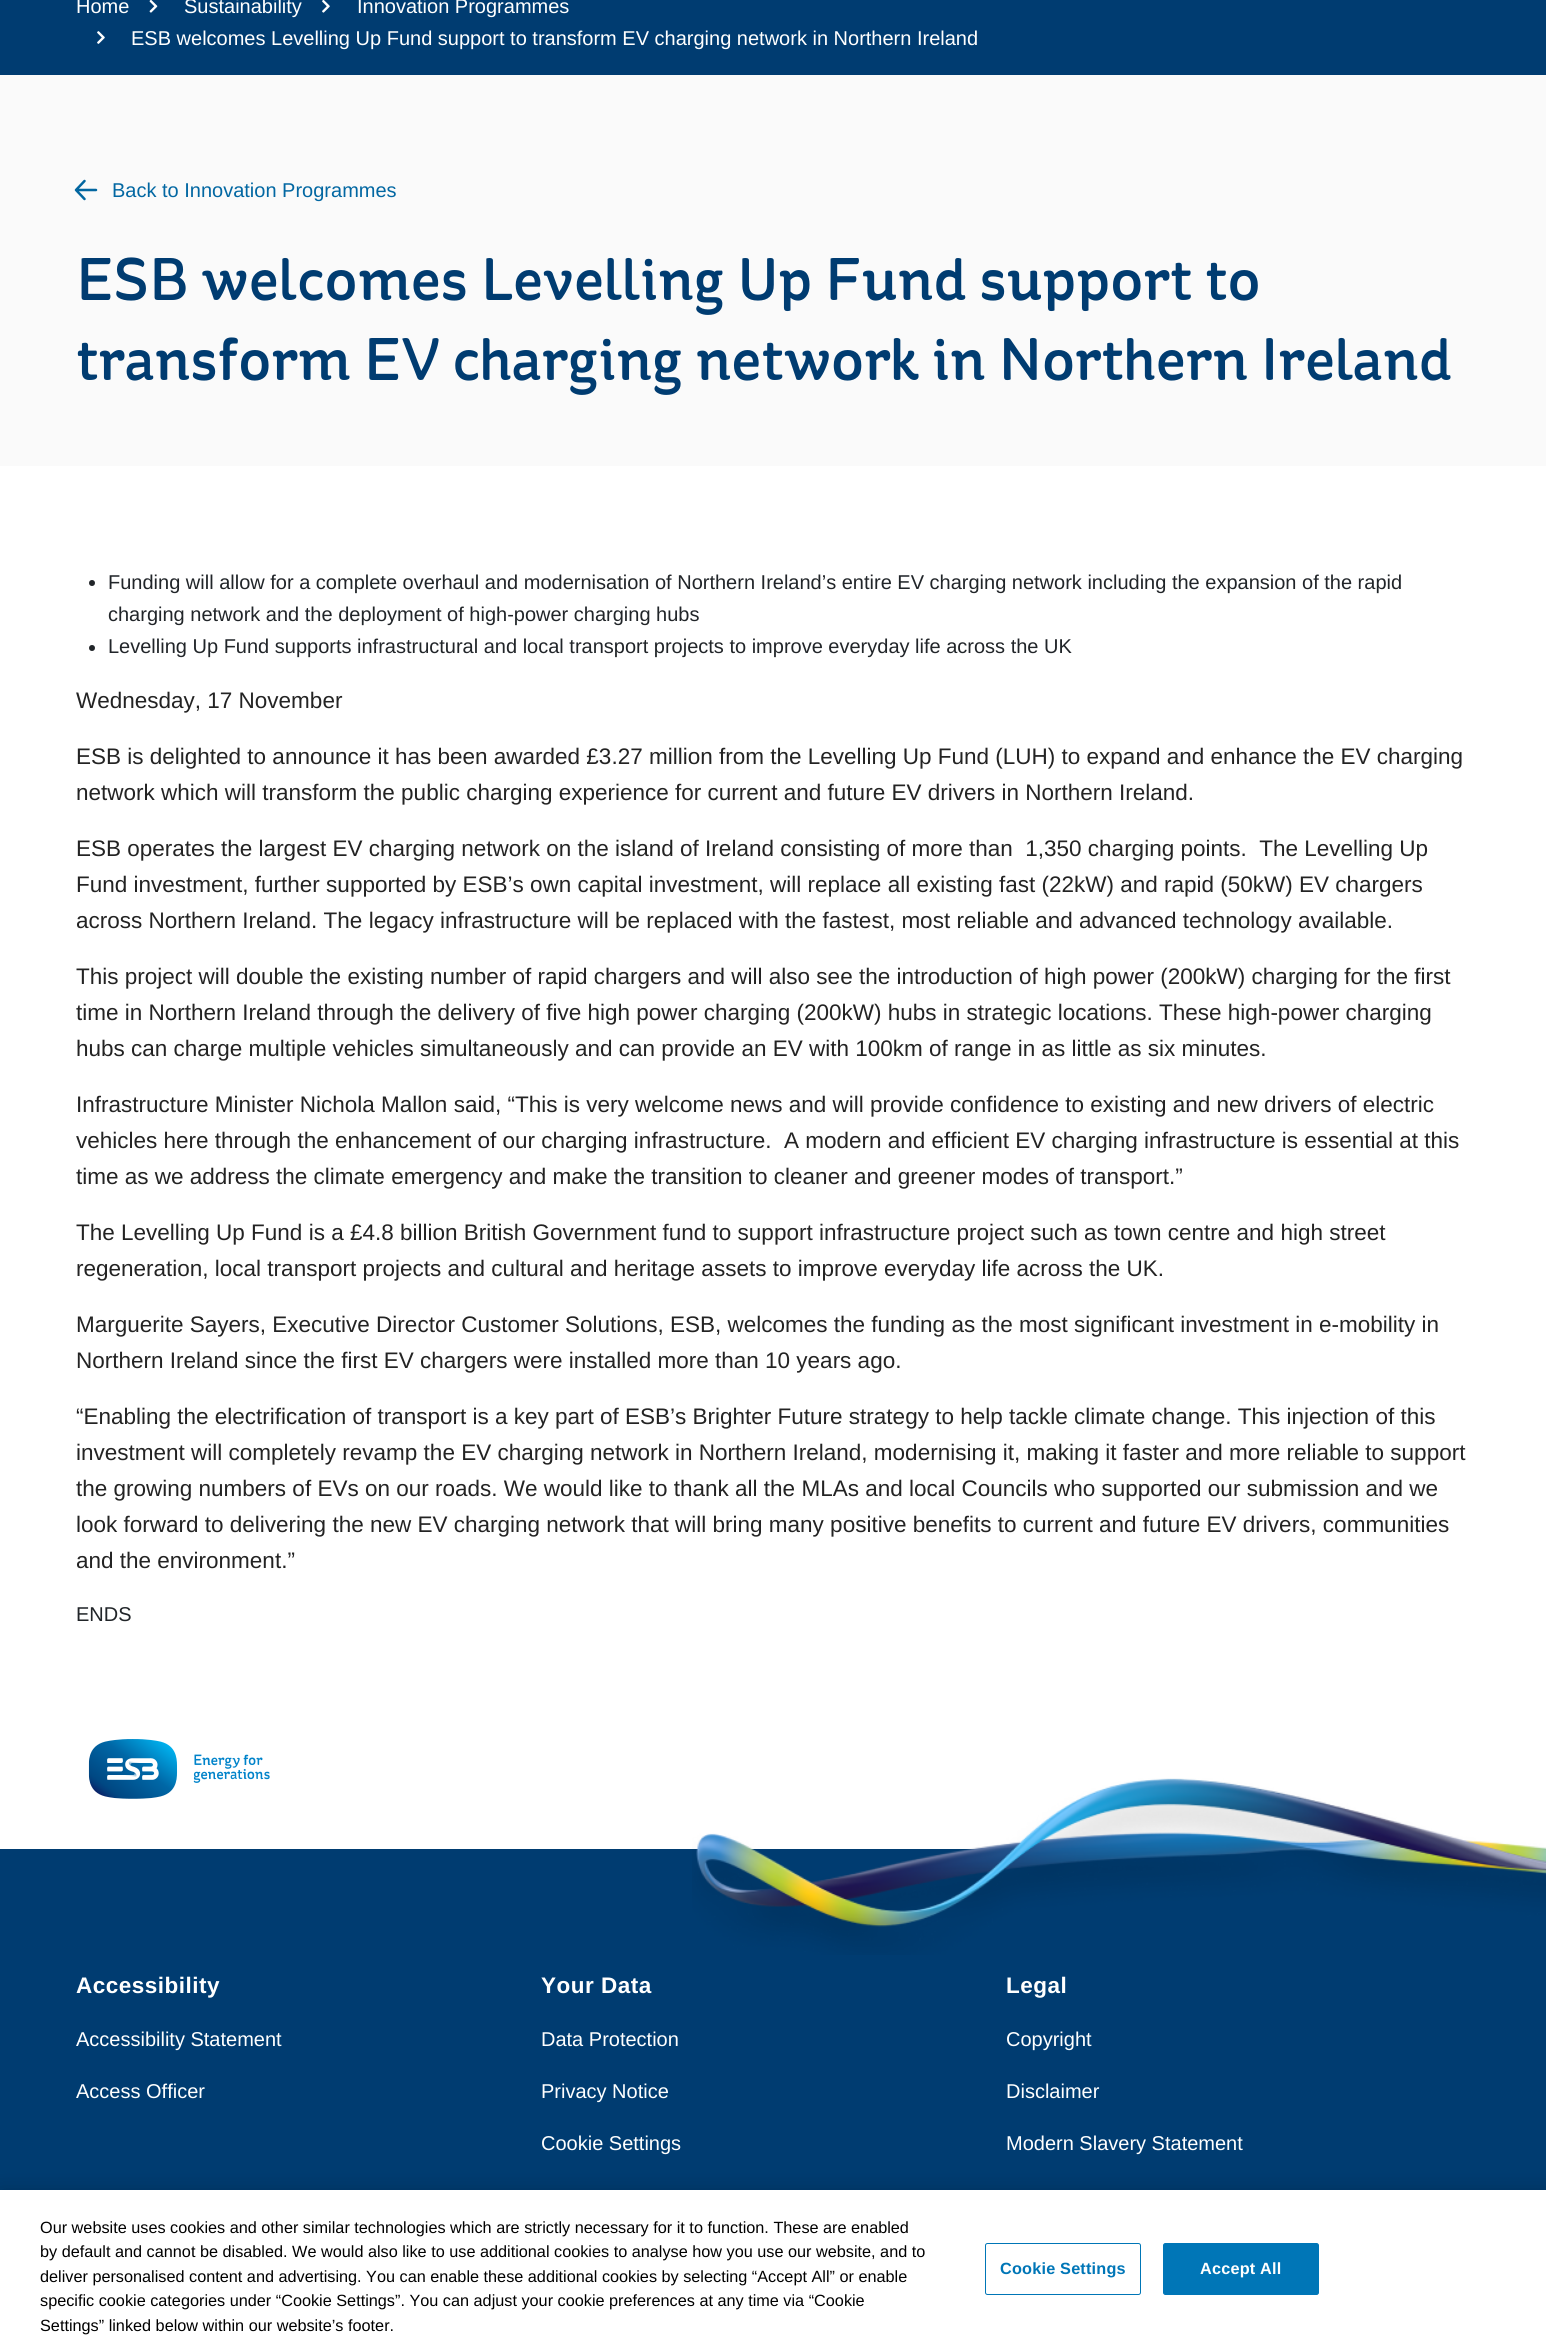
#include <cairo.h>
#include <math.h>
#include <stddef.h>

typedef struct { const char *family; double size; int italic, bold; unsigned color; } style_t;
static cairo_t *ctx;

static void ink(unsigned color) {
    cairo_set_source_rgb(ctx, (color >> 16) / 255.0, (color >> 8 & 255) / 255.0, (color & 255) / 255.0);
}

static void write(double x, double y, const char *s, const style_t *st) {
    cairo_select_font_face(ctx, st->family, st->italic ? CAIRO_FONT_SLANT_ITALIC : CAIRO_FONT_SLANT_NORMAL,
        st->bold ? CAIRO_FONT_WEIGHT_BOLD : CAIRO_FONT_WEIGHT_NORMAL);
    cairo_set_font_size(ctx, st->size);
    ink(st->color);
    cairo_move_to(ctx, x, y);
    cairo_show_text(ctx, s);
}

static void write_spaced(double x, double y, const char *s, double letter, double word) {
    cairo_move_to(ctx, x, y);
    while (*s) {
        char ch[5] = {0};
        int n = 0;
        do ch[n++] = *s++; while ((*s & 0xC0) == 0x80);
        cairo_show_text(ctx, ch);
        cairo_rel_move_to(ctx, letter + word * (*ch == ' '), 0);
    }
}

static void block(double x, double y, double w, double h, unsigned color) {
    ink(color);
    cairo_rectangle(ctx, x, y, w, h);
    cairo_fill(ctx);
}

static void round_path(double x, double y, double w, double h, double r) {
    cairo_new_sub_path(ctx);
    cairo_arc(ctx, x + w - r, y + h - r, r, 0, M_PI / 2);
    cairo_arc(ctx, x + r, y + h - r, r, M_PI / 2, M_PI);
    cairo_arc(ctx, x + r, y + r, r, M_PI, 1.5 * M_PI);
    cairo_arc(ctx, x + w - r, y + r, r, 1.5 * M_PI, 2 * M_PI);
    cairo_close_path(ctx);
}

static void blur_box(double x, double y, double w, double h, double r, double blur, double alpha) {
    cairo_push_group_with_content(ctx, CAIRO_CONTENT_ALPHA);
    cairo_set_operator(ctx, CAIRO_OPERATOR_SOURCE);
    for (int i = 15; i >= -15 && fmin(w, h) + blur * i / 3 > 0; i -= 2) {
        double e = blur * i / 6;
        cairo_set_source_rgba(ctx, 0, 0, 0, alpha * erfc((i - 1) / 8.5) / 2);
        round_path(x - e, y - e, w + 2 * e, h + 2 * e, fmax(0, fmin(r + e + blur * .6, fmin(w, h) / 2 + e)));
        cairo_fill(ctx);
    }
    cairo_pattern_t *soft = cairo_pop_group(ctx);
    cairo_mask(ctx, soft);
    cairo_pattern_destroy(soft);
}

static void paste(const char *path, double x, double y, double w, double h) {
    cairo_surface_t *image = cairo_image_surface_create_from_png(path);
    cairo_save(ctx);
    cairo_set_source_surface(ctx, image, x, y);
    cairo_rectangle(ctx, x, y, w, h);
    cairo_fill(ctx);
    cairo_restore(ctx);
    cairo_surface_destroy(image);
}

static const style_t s1 = {"Liberation Sans", 20, 0, 0, 0xffffff};
static const style_t s2 = {"Liberation Sans", 20, 0, 0, 0x0267a2};
static const style_t s3 = {"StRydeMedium", 60, 0, 0, 0x003c71};
static const style_t s4 = {"Liberation Sans", 20, 0, 0, 0x212529};
static const style_t s5 = {"Liberation Sans", 22.5, 0, 0, 0x232323};
static const style_t s6 = {"Liberation Sans", 16.25, 0, 0, 0x000000};

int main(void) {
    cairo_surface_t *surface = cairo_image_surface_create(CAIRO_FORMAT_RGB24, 1546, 2350);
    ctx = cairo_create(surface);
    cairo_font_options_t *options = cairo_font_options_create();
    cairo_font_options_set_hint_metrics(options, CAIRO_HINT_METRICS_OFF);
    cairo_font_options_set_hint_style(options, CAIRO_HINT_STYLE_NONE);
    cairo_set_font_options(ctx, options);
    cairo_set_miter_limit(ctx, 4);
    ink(0xffffff);
    cairo_paint(ctx);
    block(0, 0, 1546, 75, 0x003c71);
    write(76, 13, "Home", &s1);
    paste("pic1.png", 149, 0, 9, 13);
    write(184, 13, "Sustainability", &s1);
    paste("pic2.png", 322, 0, 8, 13);
    write(357, 13, "Innovation Programmes", &s1);
    paste("pic3.png", 97, 31, 8, 13);
    write(131, 45, "ESB welcomes Levelling Up Fund support to transform EV charging network in Northern Ireland", &s1);
    block(0, 75, 1546, 391, 0xfafafa);
    cairo_new_path(ctx);
    cairo_move_to(ctx, 96, 190);
    cairo_line_to(ctx, 76, 190);
    cairo_move_to(ctx, 84.5, 181);
    cairo_line_to(ctx, 76, 190);
    cairo_line_to(ctx, 84.5, 199);
    ink(0x0266a0);
    cairo_set_line_width(ctx, 2.5);
    cairo_set_line_cap(ctx, CAIRO_LINE_CAP_ROUND);
    cairo_set_line_join(ctx, CAIRO_LINE_JOIN_ROUND);
    cairo_stroke(ctx);
    write(112, 197, "Back to Innovation Programmes", &s2);
    write(76, 300, "ESB welcomes Levelling Up Fund support to", &s3);
    write(76, 380, "transform EV charging network in Northern Ireland", &s3);
    ink(0x212529);
    cairo_new_path(ctx);
    cairo_arc(ctx, 92, 583, 3, 0, 2 * M_PI);
    cairo_fill(ctx);
    write(108, 589, "Funding will allow for a complete overhaul and modernisation of Northern Ireland’s entire EV charging network including the expansion of the rapid", &s4);
    write(108, 621, "charging network and the deployment of high-power charging hubs", &s4);
    cairo_new_path(ctx);
    cairo_arc(ctx, 92, 648, 3, 0, 2 * M_PI);
    cairo_fill(ctx);
    write(108, 653, "Levelling Up Fund supports infrastructural and local transport projects to improve everyday life across the UK", &s4);
    write(76, 708, "Wednesday, 17 November", &s5);
    write(76, 764, "ESB is delighted to announce it has been awarded £3.27 million from the Levelling Up Fund (LUH) to expand and enhance the EV charging", &s5);
    write(76, 800, "network which will transform the public charging experience for current and future EV drivers in Northern Ireland.", &s5);
    write(76, 856, "ESB operates the largest EV charging network on the island of Ireland consisting of more than  1,350 charging points.  The Levelling Up", &s5);
    write(76, 892, "Fund investment, further supported by ESB’s own capital investment, will replace all existing fast (22kW) and rapid (50kW) EV chargers", &s5);
    write(76, 928, "across Northern Ireland. The legacy infrastructure will be replaced with the fastest, most reliable and advanced technology available.", &s5);
    write(76, 984, "This project will double the existing number of rapid chargers and will also see the introduction of high power (200kW) charging for the first", &s5);
    write(76, 1020, "time in Northern Ireland through the delivery of five high power charging (200kW) hubs in strategic locations. These high-power charging", &s5);
    write(76, 1056, "hubs can charge multiple vehicles simultaneously and can provide an EV with 100km of range in as little as six minutes.", &s5);
    write(76, 1112, "Infrastructure Minister Nichola Mallon said, “This is very welcome news and will provide confidence to existing and new drivers of electric", &s5);
    write(76, 1148, "vehicles here through the enhancement of our charging infrastructure.  A modern and efficient EV charging infrastructure is essential at this", &s5);
    write(76, 1184, "time as we address the climate emergency and make the transition to cleaner and greener modes of transport.”", &s5);
    write(76, 1240, "The Levelling Up Fund is a £4.8 billion British Government fund to support infrastructure project such as town centre and high street", &s5);
    write(76, 1276, "regeneration, local transport projects and cultural and heritage assets to improve everyday life across the UK.", &s5);
    write(76, 1332, "Marguerite Sayers, Executive Director Customer Solutions, ESB, welcomes the funding as the most significant investment in e-mobility in", &s5);
    write(76, 1368, "Northern Ireland since the first EV chargers were installed more than 10 years ago.", &s5);
    write(76, 1424, "“Enabling the electrification of transport is a key part of ESB’s Brighter Future strategy to help tackle climate change. This injection of this", &s5);
    write(76, 1460, "investment will completely revamp the EV charging network in Northern Ireland, modernising it, making it faster and more reliable to support", &s5);
    write(76, 1496, "the growing numbers of EVs on our roads. We would like to thank all the MLAs and local Councils who supported our submission and we", &s5);
    write(76, 1532, "look forward to delivering the new EV charging network that will bring many positive benefits to current and future EV drivers, communities", &s5);
    write(76, 1568, "and the environment.”", &s5);
    write(76, 1621, "ENDS", &s4);
    block(0, 1849, 1546, 341, 0x003c71);
    paste("pic4.png", 88, 1739, 182, 60);
    paste("pic5.png", 692, 1778, 854, 177);
    cairo_select_font_face(ctx, "Liberation Sans", CAIRO_FONT_SLANT_NORMAL, CAIRO_FONT_WEIGHT_BOLD);
    cairo_set_font_size(ctx, 22.5);
    ink(0xffffff);
    write_spaced(76, 1993, "Accessibility", 0.5, 0);
    write(76, 2046, "Accessibility Statement", &s1);
    write(76, 2098, "Access Officer", &s1);
    cairo_select_font_face(ctx, "Liberation Sans", CAIRO_FONT_SLANT_NORMAL, CAIRO_FONT_WEIGHT_BOLD);
    cairo_set_font_size(ctx, 22.5);
    write_spaced(541, 1993, "Your Data", 0.5, 0);
    write(541, 2046, "Data Protection", &s1);
    write(541, 2098, "Privacy Notice", &s1);
    write(541, 2150, "Cookie Settings", &s1);
    cairo_select_font_face(ctx, "Liberation Sans", CAIRO_FONT_SLANT_NORMAL, CAIRO_FONT_WEIGHT_BOLD);
    cairo_set_font_size(ctx, 22.5);
    write_spaced(1006, 1993, "Legal", 0.5, 0);
    write(1006, 2046, "Copyright", &s1);
    write(1006, 2098, "Disclaimer", &s1);
    write(1006, 2150, "Modern Slavery Statement", &s1);
    ink(0x000000);
    blur_box(0, 2190, 1546, 160, 0, 11, 0.2);
    block(0, 2190, 1546, 160, 0xffffff);
    write(40, 2233, "Our website uses cookies and other similar technologies which are strictly necessary for it to function. These are enabled", &s6);
    write(40, 2257, "by default and cannot be disabled. We would also like to use additional cookies to analyse how you use our website, and to", &s6);
    write(40, 2282, "deliver personalised content and advertising. You can enable these additional cookies by selecting “Accept All” or enable", &s6);
    write(40, 2306, "specific cookie categories under “Cookie Settings”. You can adjust your cookie preferences at any time via “Cookie", &s6);
    write(40, 2331, "Settings” linked below within our website’s footer.", &s6);
    round_path(985.5, 2243.5, 155, 51, 2);
    ink(0x0076b7);
    cairo_set_line_width(ctx, 1);
    cairo_set_line_cap(ctx, CAIRO_LINE_CAP_BUTT);
    cairo_set_line_join(ctx, CAIRO_LINE_JOIN_MITER);
    cairo_stroke(ctx);
    cairo_select_font_face(ctx, "Liberation Sans", CAIRO_FONT_SLANT_NORMAL, CAIRO_FONT_WEIGHT_BOLD);
    write_spaced(1000, 2274, "Cookie Settings", 0.2, 0);
    round_path(1163.5, 2243.5, 155, 51, 2);
    cairo_fill_preserve(ctx);
    cairo_stroke(ctx);
    ink(0xffffff);
    write_spaced(1200, 2274, "Accept All", 0.2, 0);
    cairo_surface_write_to_png(surface, "screenshot.png");
    cairo_font_options_destroy(options);
    cairo_destroy(ctx);
    cairo_surface_destroy(surface);
    return 0;
}
